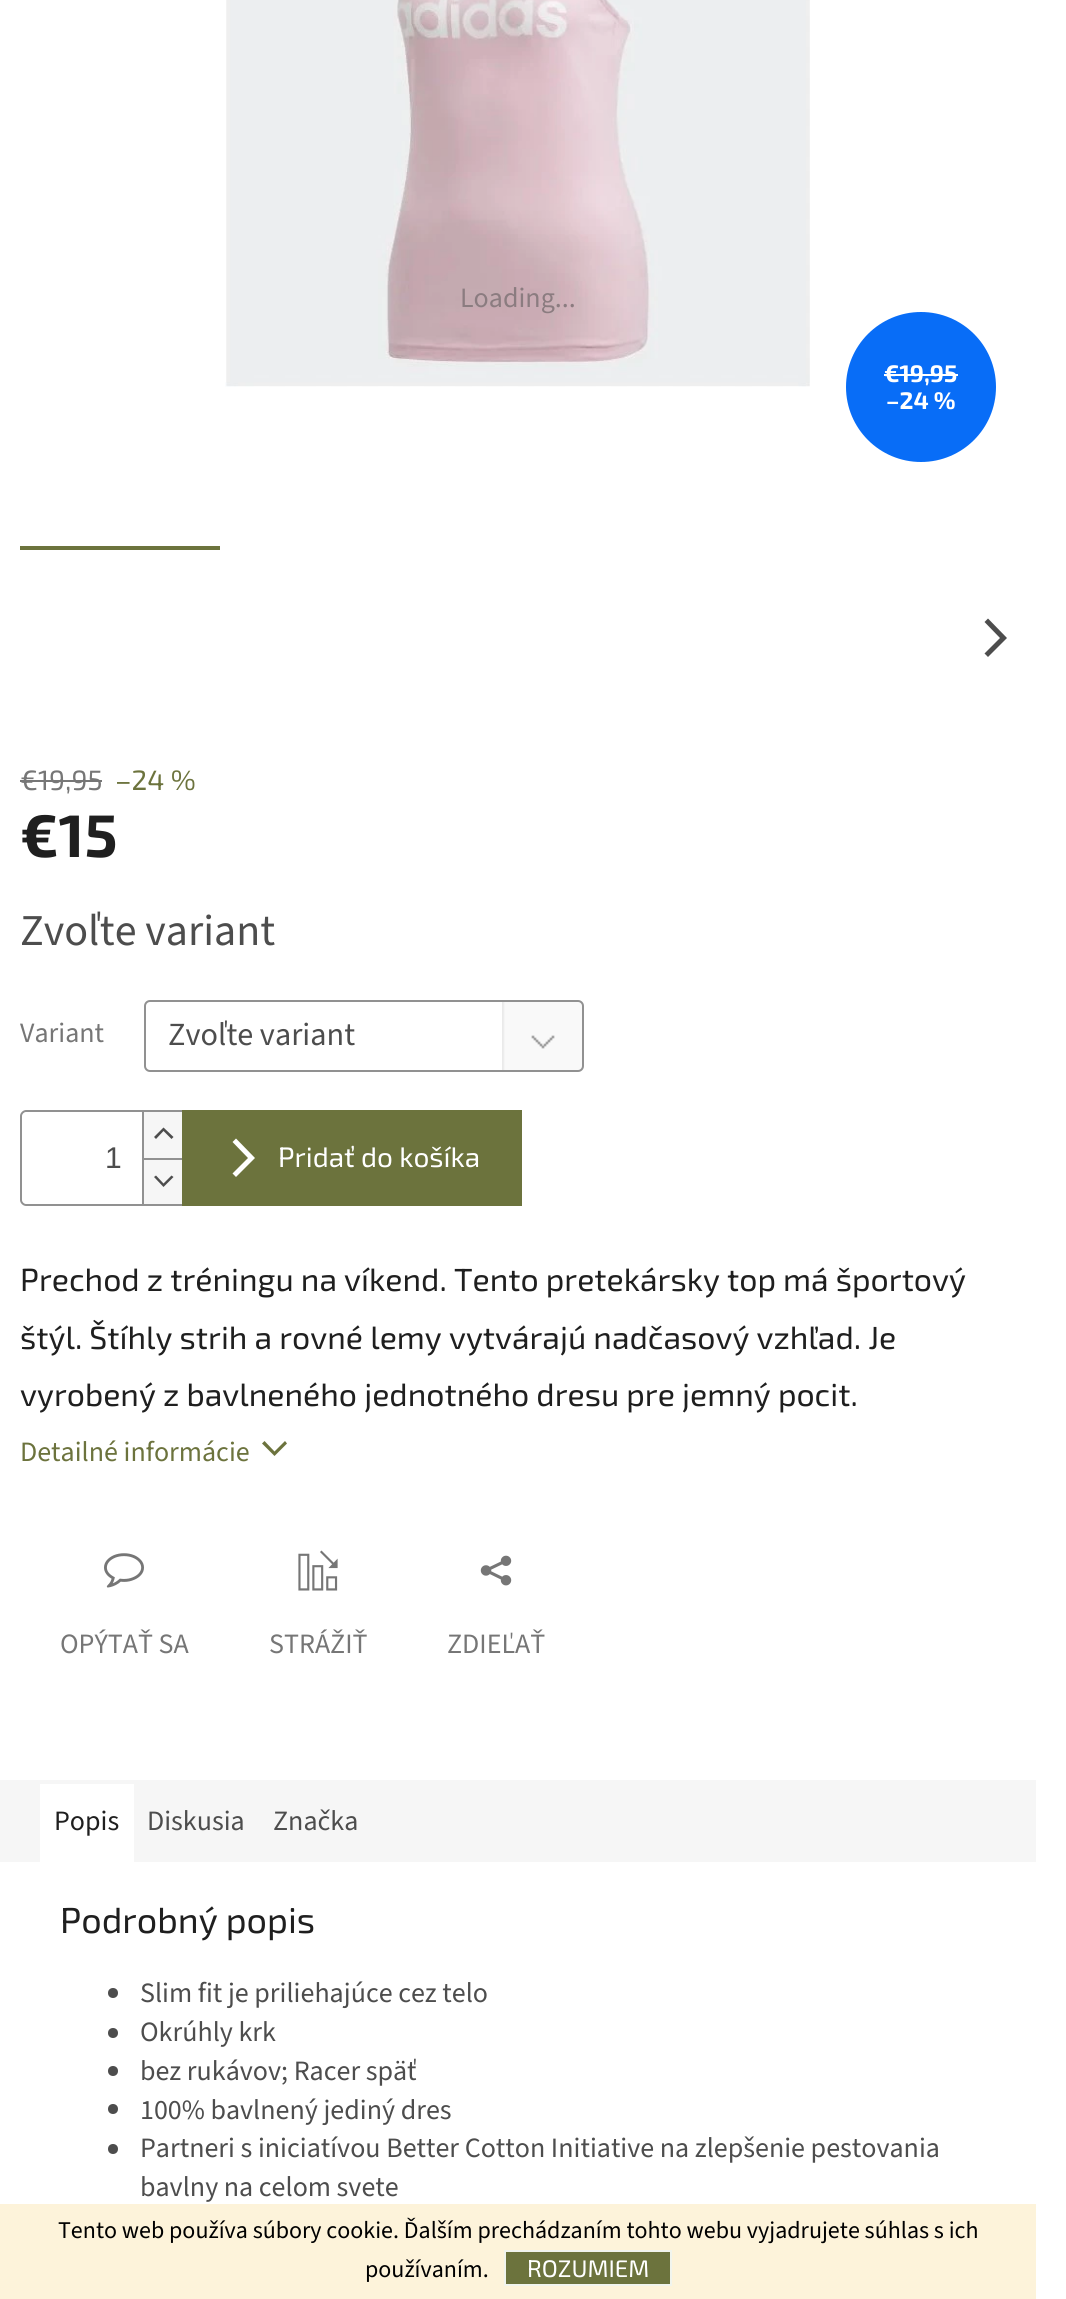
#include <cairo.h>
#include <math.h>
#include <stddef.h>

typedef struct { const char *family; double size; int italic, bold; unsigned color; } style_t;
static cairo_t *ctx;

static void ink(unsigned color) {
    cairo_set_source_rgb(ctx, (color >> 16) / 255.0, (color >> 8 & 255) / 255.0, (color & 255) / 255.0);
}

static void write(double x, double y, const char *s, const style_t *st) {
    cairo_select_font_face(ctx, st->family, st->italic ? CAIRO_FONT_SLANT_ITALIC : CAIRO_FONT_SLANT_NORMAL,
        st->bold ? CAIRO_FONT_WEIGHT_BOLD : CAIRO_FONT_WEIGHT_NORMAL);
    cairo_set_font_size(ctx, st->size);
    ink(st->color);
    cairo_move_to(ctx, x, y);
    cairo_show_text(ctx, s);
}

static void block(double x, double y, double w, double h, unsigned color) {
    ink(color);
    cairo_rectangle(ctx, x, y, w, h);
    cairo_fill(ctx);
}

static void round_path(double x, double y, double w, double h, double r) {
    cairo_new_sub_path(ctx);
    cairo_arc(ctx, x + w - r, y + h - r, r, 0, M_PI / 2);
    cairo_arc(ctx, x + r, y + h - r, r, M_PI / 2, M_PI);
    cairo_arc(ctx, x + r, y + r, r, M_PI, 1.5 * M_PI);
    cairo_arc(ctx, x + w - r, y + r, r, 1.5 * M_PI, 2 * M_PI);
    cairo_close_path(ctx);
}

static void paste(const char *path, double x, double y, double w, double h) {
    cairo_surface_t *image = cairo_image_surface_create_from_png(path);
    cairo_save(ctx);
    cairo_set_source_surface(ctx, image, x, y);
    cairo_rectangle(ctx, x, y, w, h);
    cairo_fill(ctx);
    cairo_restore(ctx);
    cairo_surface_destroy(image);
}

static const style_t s1 = {"Source Sans 3", 28, 0, 0, 0x8b7c80};
static const style_t s2 = {"Exo 2", 24, 0, 1, 0xffffff};
static const style_t s3 = {"Exo 2", 28, 0, 0, 0x767676};
static const style_t s4 = {"Exo 2", 28, 0, 0, 0x6c733d};
static const style_t s5 = {"Exo 2", 60, 0, 1, 0x1f1f1f};
static const style_t s6 = {"Source Sans 3", 44, 0, 0, 0x4d4d4d};
static const style_t s7 = {"Source Sans 3", 28, 0, 0, 0x767676};
static const style_t s8 = {"Source Sans 3", 32.25, 0, 0, 0x4d4d4d};
static const style_t s9 = {"Liberation Sans", 30, 0, 0, 0x4d4d4d};
static const style_t s10 = {"Exo 2", 28, 0, 0, 0xffffff};
static const style_t s11 = {"Exo 2", 32, 0, 0, 0x1f1f1f};
static const style_t s12 = {"Source Sans 3", 28, 0, 0, 0x6c733d};
static const style_t s13 = {"Source Sans 3", 28, 0, 0, 0x1f1f1f};
static const style_t s14 = {"Source Sans 3", 28, 0, 0, 0x4d4d4d};
static const style_t s15 = {"Exo 2", 36, 0, 0, 0x1f1f1f};
static const style_t s16 = {"Source Sans 3", 24, 0, 0, 0x000000};
static const style_t s17 = {"Exo 2", 24, 0, 0, 0xffffff};

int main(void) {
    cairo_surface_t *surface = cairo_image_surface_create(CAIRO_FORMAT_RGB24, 1066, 2299);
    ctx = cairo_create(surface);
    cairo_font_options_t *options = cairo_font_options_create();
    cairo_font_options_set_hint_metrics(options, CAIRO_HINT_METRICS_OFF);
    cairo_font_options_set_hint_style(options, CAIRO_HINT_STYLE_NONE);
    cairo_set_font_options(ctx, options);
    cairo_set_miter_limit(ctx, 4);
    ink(0xffffff);
    cairo_paint(ctx);
    paste("pic1.png", 225, 0, 585, 387);
    write(460, 307, "Loading...", &s1);
    ink(0x086df7);
    cairo_new_path(ctx);
    cairo_arc(ctx, 921, 387, 75, 0, 2 * M_PI);
    cairo_fill(ctx);
    write(884, 382, "€19,95", &s2);
    block(884, 374, 74, 2, 0xffffff);
    write(886, 409, "–24 %", &s2);
    block(20, 546, 200, 4, 0x6c733d);
    ink(0x4d4d4d);
    cairo_new_path(ctx);
    cairo_move_to(ctx, 988, 657);
    cairo_line_to(ctx, 984.5, 653.5);
    cairo_line_to(ctx, 1000, 638);
    cairo_line_to(ctx, 984.5, 622);
    cairo_line_to(ctx, 988, 618.5);
    cairo_line_to(ctx, 1007, 638);
    cairo_close_path(ctx);
    cairo_fill(ctx);
    write(20, 790, "€19,95", &s3);
    block(20, 780, 82, 2, 0x767676);
    write(115, 790, "–24 %", &s4);
    write(20, 857, "€15", &s5);
    write(20, 945, "Zvoľte variant", &s6);
    write(20, 1042, "Variant", &s7);
    paste("pic2.png", 502, 1000, 80, 72);
    round_path(145, 1001, 438, 70, 5);
    ink(0x919191);
    cairo_stroke(ctx);
    write(168, 1045, "Zvoľte variant", &s8);
    ink(0x919191);
    cairo_set_fill_rule(ctx, CAIRO_FILL_RULE_EVEN_ODD);
    cairo_new_path(ctx);
    cairo_move_to(ctx, 26, 1110);
    cairo_line_to(ctx, 182, 1110);
    cairo_line_to(ctx, 182, 1206);
    cairo_line_to(ctx, 26, 1206);
    cairo_curve_to(ctx, 23, 1206, 20, 1203, 20, 1200);
    cairo_line_to(ctx, 20, 1116);
    cairo_curve_to(ctx, 20, 1113, 23, 1110, 26, 1110);
    cairo_close_path(ctx);
    cairo_move_to(ctx, 26, 1112);
    cairo_line_to(ctx, 182, 1112);
    cairo_line_to(ctx, 182, 1204);
    cairo_line_to(ctx, 26, 1204);
    cairo_curve_to(ctx, 24, 1204, 22, 1202, 22, 1200);
    cairo_line_to(ctx, 22, 1116);
    cairo_curve_to(ctx, 22, 1114, 24, 1112, 26, 1112);
    cairo_close_path(ctx);
    cairo_fill(ctx);
    write(105, 1168, "1", &s9);
    block(144, 1112, 38, 46, 0xf6f6f6);
    block(142, 1112, 2, 46, 0x919191);
    ink(0x4d4d4d);
    cairo_set_fill_rule(ctx, CAIRO_FILL_RULE_WINDING);
    cairo_new_path(ctx);
    cairo_move_to(ctx, 154, 1137);
    cairo_line_to(ctx, 156, 1139);
    cairo_line_to(ctx, 163.5, 1131);
    cairo_line_to(ctx, 171.5, 1139);
    cairo_line_to(ctx, 173.5, 1137);
    cairo_line_to(ctx, 163.5, 1127.5);
    cairo_close_path(ctx);
    cairo_fill(ctx);
    block(144, 1160, 38, 44, 0xf6f6f6);
    block(142, 1158, 40, 2, 0x919191);
    block(142, 1158, 2, 46, 0x919191);
    ink(0x4d4d4d);
    cairo_new_path(ctx);
    cairo_move_to(ctx, 154, 1177);
    cairo_line_to(ctx, 156, 1175.5);
    cairo_line_to(ctx, 163.5, 1183.5);
    cairo_line_to(ctx, 171.5, 1175.5);
    cairo_line_to(ctx, 173.5, 1177);
    cairo_line_to(ctx, 163.5, 1187);
    cairo_close_path(ctx);
    cairo_fill(ctx);
    block(182, 1110, 340, 96, 0x6c733d);
    ink(0xffffff);
    cairo_new_path(ctx);
    cairo_move_to(ctx, 236, 1177);
    cairo_line_to(ctx, 232.5, 1173.5);
    cairo_line_to(ctx, 248, 1158);
    cairo_line_to(ctx, 232.5, 1142);
    cairo_line_to(ctx, 236, 1138.5);
    cairo_line_to(ctx, 255, 1158);
    cairo_close_path(ctx);
    cairo_fill(ctx);
    write(278, 1167, "Pridať do košíka", &s10);
    write(20, 1291, "Prechod z tréningu na víkend. Tento pretekársky top má športový", &s11);
    write(20, 1349, "štýl. Štíhly strih a rovné lemy vytvárajú nadčasový vzhľad. Je", &s11);
    write(20, 1406, "vyrobený z bavlneného jednotného dresu pre jemný pocit.", &s11);
    write(20, 1461, "Detailné informácie", &s12);
    cairo_new_path(ctx);
    cairo_move_to(ctx, 262, 1443.5);
    cairo_line_to(ctx, 264.5, 1441);
    cairo_line_to(ctx, 274.5, 1451.5);
    cairo_line_to(ctx, 285, 1441);
    cairo_line_to(ctx, 287, 1443.5);
    cairo_line_to(ctx, 274.5, 1456);
    cairo_close_path(ctx);
    cairo_fill(ctx);
    paste("pic3.png", 104, 1553, 40, 35);
    write(60, 1653, "OPÝTAŤ SA", &s7);
    paste("pic4.png", 298, 1550, 40, 41);
    write(269, 1653, "STRÁŽIŤ", &s7);
    paste("pic5.png", 480, 1555, 32, 31);
    write(447, 1653, "ZDIEĽAŤ", &s7);
    block(0, 1780, 1036, 82, 0xf6f6f6);
    block(40, 1784, 94, 78, 0xffffff);
    write(54, 1830, "Popis", &s13);
    write(147, 1830, "Diskusia", &s14);
    write(273, 1830, "Značka", &s14);
    write(60, 1933, "Podrobný popis", &s15);
    ink(0x4d4d4d);
    cairo_new_path(ctx);
    cairo_arc(ctx, 113, 1993, 5, 0, 2 * M_PI);
    cairo_fill(ctx);
    write(140, 2002, "Slim fit je priliehajúce cez telo", &s14);
    cairo_new_path(ctx);
    cairo_arc(ctx, 113, 2033, 5, 0, 2 * M_PI);
    cairo_fill(ctx);
    write(140, 2041, "Okrúhly krk", &s14);
    cairo_new_path(ctx);
    cairo_arc(ctx, 113, 2071, 5, 0, 2 * M_PI);
    cairo_fill(ctx);
    write(140, 2080, "bez rukávov; Racer späť", &s14);
    cairo_new_path(ctx);
    cairo_arc(ctx, 113, 2109, 5, 0, 2 * M_PI);
    cairo_fill(ctx);
    write(140, 2119, "100% bavlnený jediný dres", &s14);
    cairo_new_path(ctx);
    cairo_arc(ctx, 113, 2149, 5, 0, 2 * M_PI);
    cairo_fill(ctx);
    write(140, 2157, "Partneri s iniciatívou Better Cotton Initiative na zlepšenie pestovania", &s14);
    write(140, 2196, "bavlny na celom svete", &s14);
    block(0, 2204, 1036, 95, 0xfdf3da);
    write(58, 2238, "Tento web používa súbory cookie. Ďalším prechádzaním tohto webu vyjadrujete súhlas s ich", &s16);
    write(365, 2277, "používaním.", &s16);
    ink(0x6c733d);
    cairo_rectangle(ctx, 505, 2251, 166, 34);
    cairo_fill_preserve(ctx);
    ink(0xf1f4ed);
    cairo_stroke(ctx);
    write(527, 2277, "ROZUMIEM", &s17);
    cairo_surface_write_to_png(surface, "screenshot.png");
    cairo_font_options_destroy(options);
    cairo_destroy(ctx);
    cairo_surface_destroy(surface);
    return 0;
}
